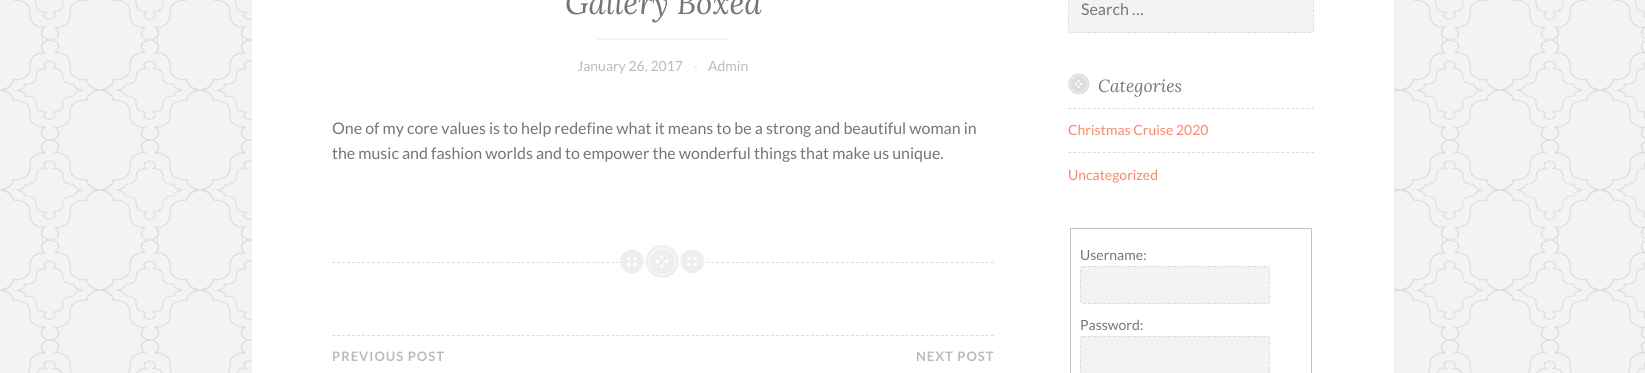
#include <cairo.h>
#include <math.h>
#include <stddef.h>

typedef struct { const char *family; double size; int italic, bold; unsigned color; } style_t;
static cairo_t *ctx;

static void ink(unsigned color) {
    cairo_set_source_rgb(ctx, (color >> 16) / 255.0, (color >> 8 & 255) / 255.0, (color & 255) / 255.0);
}

static void write(double x, double y, const char *s, const style_t *st) {
    cairo_select_font_face(ctx, st->family, st->italic ? CAIRO_FONT_SLANT_ITALIC : CAIRO_FONT_SLANT_NORMAL,
        st->bold ? CAIRO_FONT_WEIGHT_BOLD : CAIRO_FONT_WEIGHT_NORMAL);
    cairo_set_font_size(ctx, st->size);
    ink(st->color);
    cairo_move_to(ctx, x, y);
    cairo_show_text(ctx, s);
}

static void write_spaced(double x, double y, const char *s, double letter, double word) {
    cairo_move_to(ctx, x, y);
    while (*s) {
        char ch[5] = {0};
        int n = 0;
        do ch[n++] = *s++; while ((*s & 0xC0) == 0x80);
        cairo_show_text(ctx, ch);
        cairo_rel_move_to(ctx, letter + word * (*ch == ' '), 0);
    }
}

static void block(double x, double y, double w, double h, unsigned color) {
    ink(color);
    cairo_rectangle(ctx, x, y, w, h);
    cairo_fill(ctx);
}

static void round_path(double x, double y, double w, double h, double r) {
    cairo_new_sub_path(ctx);
    cairo_arc(ctx, x + w - r, y + h - r, r, 0, M_PI / 2);
    cairo_arc(ctx, x + r, y + h - r, r, M_PI / 2, M_PI);
    cairo_arc(ctx, x + r, y + r, r, M_PI, 1.5 * M_PI);
    cairo_arc(ctx, x + w - r, y + r, r, 1.5 * M_PI, 2 * M_PI);
    cairo_close_path(ctx);
}

static void paste(const char *path, double x, double y, double w, double h) {
    cairo_surface_t *image = cairo_image_surface_create_from_png(path);
    cairo_save(ctx);
    cairo_set_source_surface(ctx, image, x, y);
    cairo_rectangle(ctx, x, y, w, h);
    cairo_fill(ctx);
    cairo_restore(ctx);
    cairo_surface_destroy(image);
}

static const style_t s1 = {"Lora", 31.25, 1, 0, 0x757575};
static const style_t s2 = {"Lato", 14, 0, 0, 0xbbbbbb};
static const style_t s3 = {"Lato", 14, 0, 0, 0xdddddd};
static const style_t s4 = {"Lato", 16, 0, 0, 0x757575};
static const style_t s5 = {"Lora", 17.5, 1, 0, 0x757575};
static const style_t s6 = {"Lato", 14, 0, 0, 0xf78769};
static const style_t s7 = {"Lato", 14, 0, 0, 0x757575};

int main(void) {
    cairo_surface_t *surface = cairo_image_surface_create(CAIRO_FORMAT_RGB24, 1645, 373);
    ctx = cairo_create(surface);
    cairo_font_options_t *options = cairo_font_options_create();
    cairo_font_options_set_hint_metrics(options, CAIRO_HINT_METRICS_OFF);
    cairo_font_options_set_hint_style(options, CAIRO_HINT_STYLE_NONE);
    cairo_set_font_options(ctx, options);
    cairo_set_miter_limit(ctx, 4);
    ink(0xf3f3f3);
    cairo_paint(ctx);
    paste("pic1.png", 0, 0, 1645, 373);
    block(252, 0, 1142, 373, 0xffffff);
    cairo_new_path(ctx);
    cairo_move_to(ctx, 332, 262.5);
    cairo_line_to(ctx, 994, 262.5);
    ink(0xdddddd);
    cairo_set_line_width(ctx, 1);
    cairo_set_dash(ctx, (double[]){3, 1.99}, 2, 0);
    cairo_stroke(ctx);
    write(565, 14, "Gallery Boxed", &s1);
    block(597, 38, 132, 2, 0xf3f3f3);
    write(577, 71, "January 26, 2017", &s2);
    write(694, 71, "·", &s3);
    write(708, 71, "Admin", &s2);
    write(332, 134, "One of my core values is to help redefine what it means to be a strong and beautiful woman in", &s4);
    write(332, 159, "the music and fashion worlds and to empower the wonderful things that make us unique.", &s4);
    block(619, 262, 88, 1, 0xffffff);
    paste("pic2.png", 620, 245, 84, 33);
    cairo_new_path(ctx);
    cairo_move_to(ctx, 332, 335.5);
    cairo_line_to(ctx, 994, 335.5);
    ink(0xdddddd);
    cairo_stroke(ctx);
    cairo_select_font_face(ctx, "Lato", CAIRO_FONT_SLANT_NORMAL, CAIRO_FONT_WEIGHT_BOLD);
    cairo_set_font_size(ctx, 13);
    ink(0xbbbbbb);
    write_spaced(332, 361, "PREVIOUS POST", 1, 0);
    write_spaced(916, 361, "NEXT POST", 1, 0);
    ink(0xf3f3f3);
    round_path(1068, -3, 246, 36, 3);
    cairo_fill(ctx);
    cairo_new_path(ctx);
    cairo_move_to(ctx, 1071, -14.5);
    cairo_line_to(ctx, 1311, -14.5);
    cairo_curve_to(ctx, 1312.5, -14.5, 1313.5, -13.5, 1313.5, -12);
    cairo_line_to(ctx, 1313.5, 30);
    cairo_curve_to(ctx, 1313.5, 31.5, 1312.5, 32.5, 1311, 32.5);
    cairo_line_to(ctx, 1071, 32.5);
    cairo_curve_to(ctx, 1069.5, 32.5, 1068.5, 31.5, 1068.5, 30);
    cairo_line_to(ctx, 1068.5, -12);
    cairo_curve_to(ctx, 1068.5, -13.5, 1069.5, -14.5, 1071, -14.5);
    cairo_close_path(ctx);
    ink(0xdddddd);
    cairo_set_dash(ctx, (double[]){3, 2}, 2, 0);
    cairo_stroke(ctx);
    write(1081, 15, "Search …", &s4);
    paste("pic3.png", 1068, 73, 22, 22);
    write(1098, 92, "Categories", &s5);
    cairo_new_path(ctx);
    cairo_move_to(ctx, 1068, 108.5);
    cairo_line_to(ctx, 1314, 108.5);
    ink(0xdddddd);
    cairo_set_dash(ctx, (double[]){3, 1.96}, 2, 0);
    cairo_stroke(ctx);
    write(1068, 135, "Christmas Cruise 2020", &s6);
    cairo_new_path(ctx);
    cairo_move_to(ctx, 1068, 152.5);
    cairo_line_to(ctx, 1314, 152.5);
    ink(0xdddddd);
    cairo_stroke(ctx);
    write(1068, 180, "Uncategorized", &s6);
    cairo_rectangle(ctx, 1070.5, 228.5, 241, 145);
    ink(0xc0c0c0);
    cairo_set_dash(ctx, NULL, 0, 0);
    cairo_stroke(ctx);
    write(1080, 260, "Username:", &s7);
    ink(0xf3f3f3);
    round_path(1080, 266, 190, 38, 3);
    cairo_fill(ctx);
    cairo_new_path(ctx);
    cairo_move_to(ctx, 1083, 266.5);
    cairo_line_to(ctx, 1267, 266.5);
    cairo_curve_to(ctx, 1268.5, 266.5, 1269.5, 267.5, 1269.5, 269);
    cairo_line_to(ctx, 1269.5, 301);
    cairo_curve_to(ctx, 1269.5, 302.5, 1268.5, 303.5, 1267, 303.5);
    cairo_line_to(ctx, 1083, 303.5);
    cairo_curve_to(ctx, 1081.5, 303.5, 1080.5, 302.5, 1080.5, 301);
    cairo_line_to(ctx, 1080.5, 269);
    cairo_curve_to(ctx, 1080.5, 267.5, 1081.5, 266.5, 1083, 266.5);
    cairo_close_path(ctx);
    ink(0xdddddd);
    cairo_set_dash(ctx, (double[]){3, 2}, 2, 0);
    cairo_stroke(ctx);
    write(1080, 330, "Password:", &s7);
    ink(0xf3f3f3);
    round_path(1080, 336, 190, 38, 3);
    cairo_fill(ctx);
    cairo_new_path(ctx);
    cairo_move_to(ctx, 1083, 336.5);
    cairo_line_to(ctx, 1267, 336.5);
    cairo_curve_to(ctx, 1268.5, 336.5, 1269.5, 337.5, 1269.5, 339);
    cairo_line_to(ctx, 1269.5, 371);
    cairo_curve_to(ctx, 1269.5, 372.5, 1268.5, 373.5, 1267, 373.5);
    cairo_line_to(ctx, 1083, 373.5);
    cairo_curve_to(ctx, 1081.5, 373.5, 1080.5, 372.5, 1080.5, 371);
    cairo_line_to(ctx, 1080.5, 339);
    cairo_curve_to(ctx, 1080.5, 337.5, 1081.5, 336.5, 1083, 336.5);
    cairo_close_path(ctx);
    ink(0xdddddd);
    cairo_stroke(ctx);
    cairo_surface_write_to_png(surface, "screenshot.png");
    cairo_font_options_destroy(options);
    cairo_destroy(ctx);
    cairo_surface_destroy(surface);
    return 0;
}
